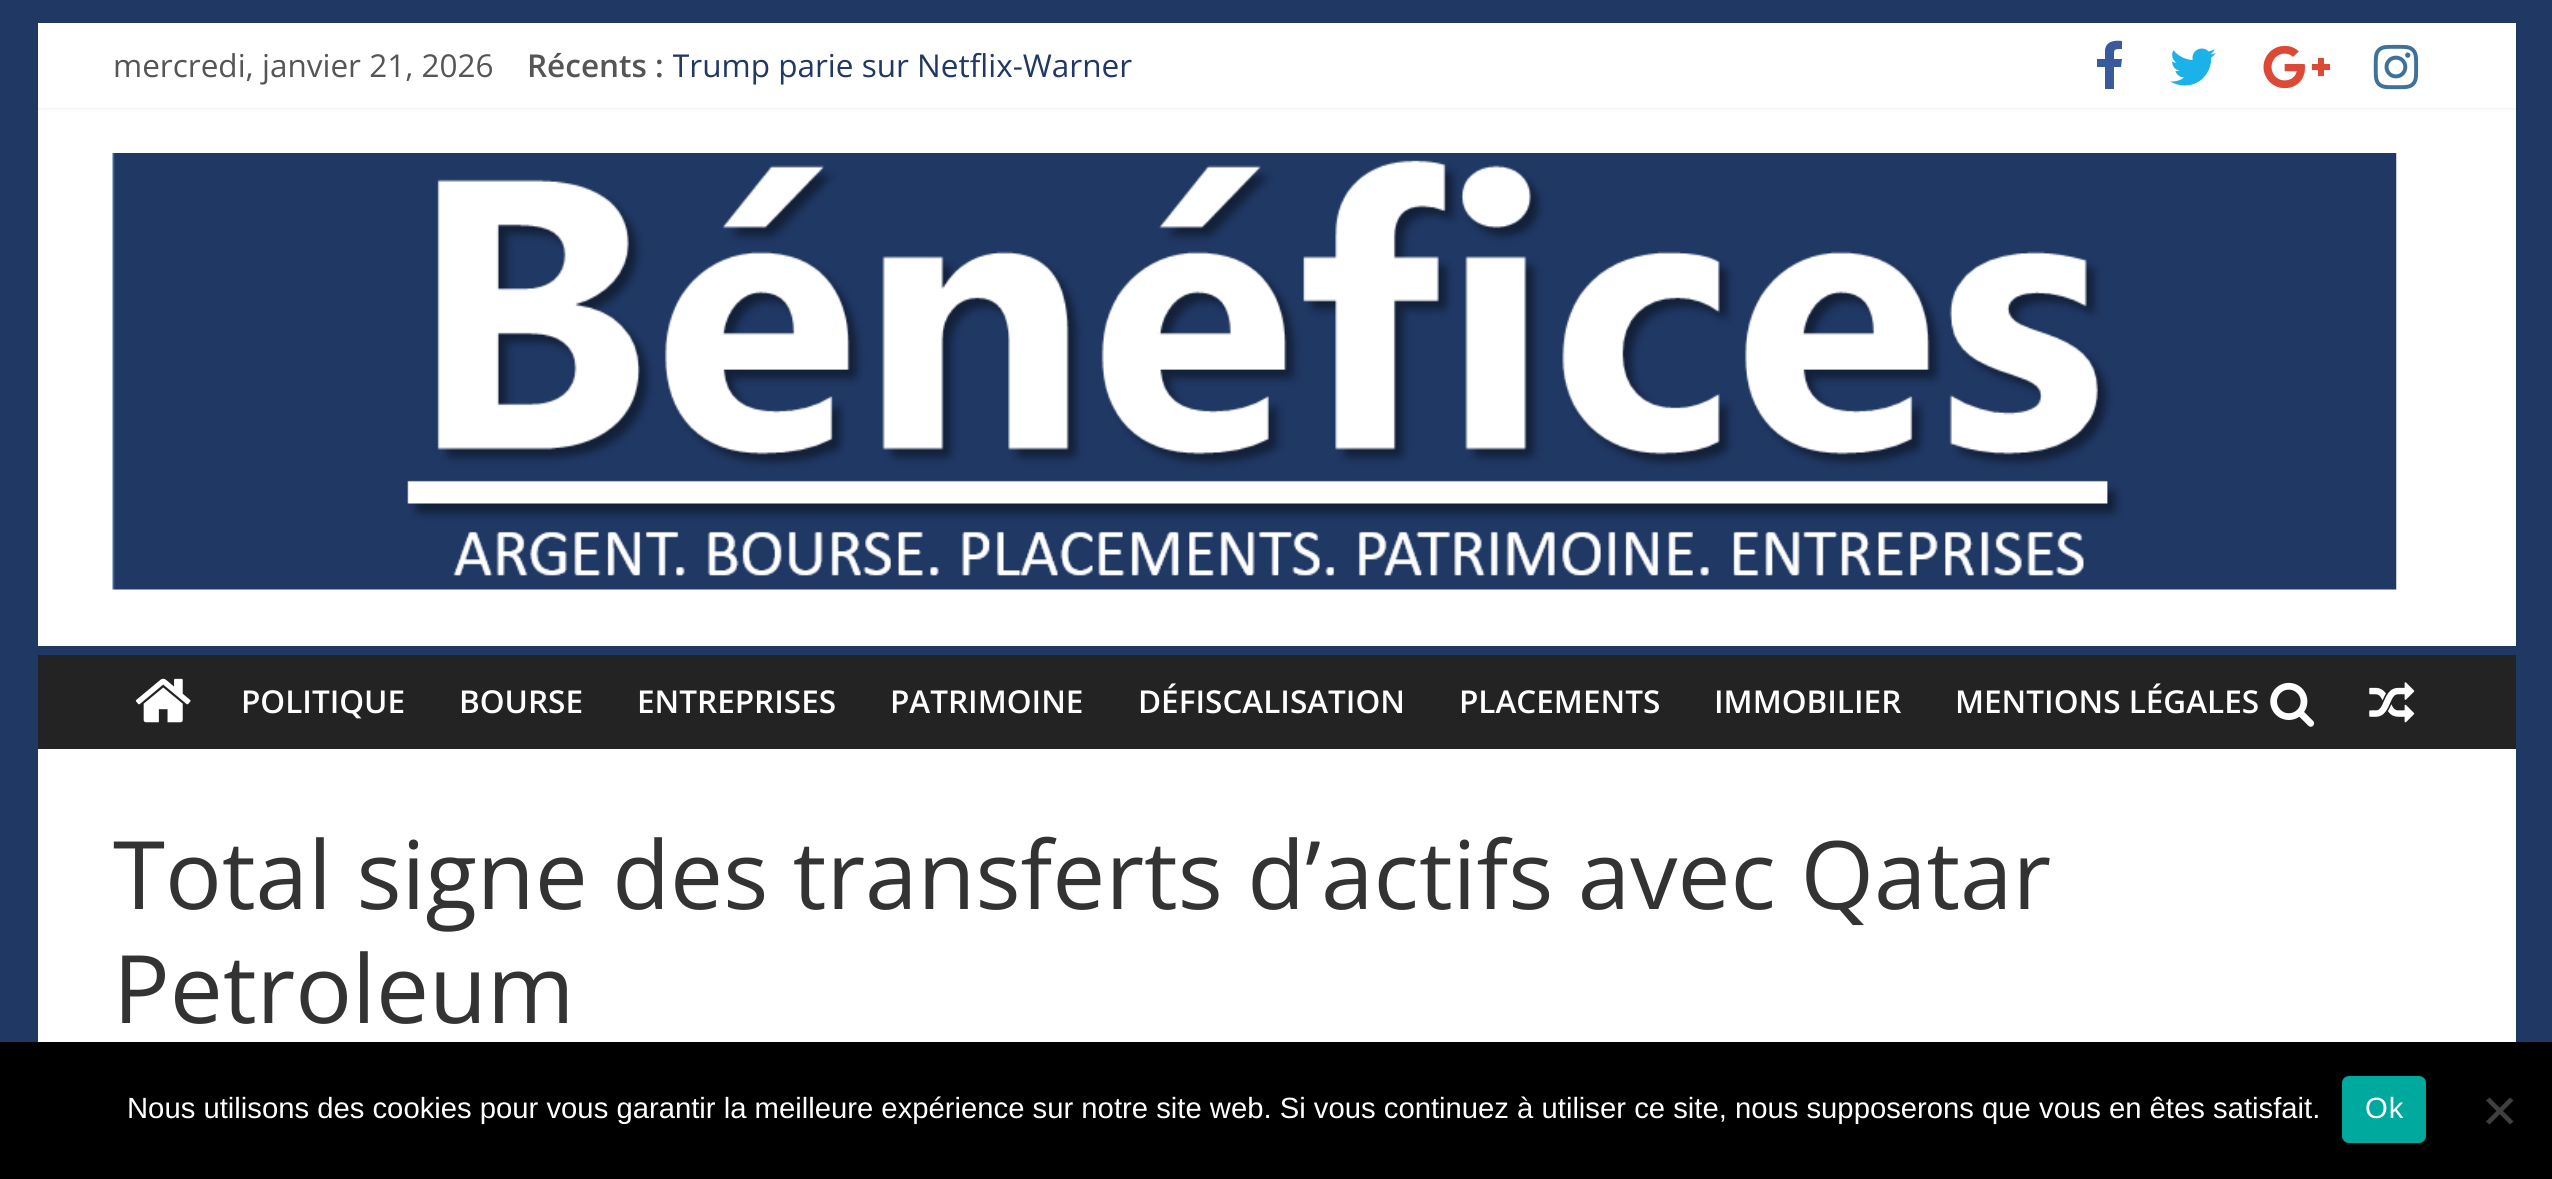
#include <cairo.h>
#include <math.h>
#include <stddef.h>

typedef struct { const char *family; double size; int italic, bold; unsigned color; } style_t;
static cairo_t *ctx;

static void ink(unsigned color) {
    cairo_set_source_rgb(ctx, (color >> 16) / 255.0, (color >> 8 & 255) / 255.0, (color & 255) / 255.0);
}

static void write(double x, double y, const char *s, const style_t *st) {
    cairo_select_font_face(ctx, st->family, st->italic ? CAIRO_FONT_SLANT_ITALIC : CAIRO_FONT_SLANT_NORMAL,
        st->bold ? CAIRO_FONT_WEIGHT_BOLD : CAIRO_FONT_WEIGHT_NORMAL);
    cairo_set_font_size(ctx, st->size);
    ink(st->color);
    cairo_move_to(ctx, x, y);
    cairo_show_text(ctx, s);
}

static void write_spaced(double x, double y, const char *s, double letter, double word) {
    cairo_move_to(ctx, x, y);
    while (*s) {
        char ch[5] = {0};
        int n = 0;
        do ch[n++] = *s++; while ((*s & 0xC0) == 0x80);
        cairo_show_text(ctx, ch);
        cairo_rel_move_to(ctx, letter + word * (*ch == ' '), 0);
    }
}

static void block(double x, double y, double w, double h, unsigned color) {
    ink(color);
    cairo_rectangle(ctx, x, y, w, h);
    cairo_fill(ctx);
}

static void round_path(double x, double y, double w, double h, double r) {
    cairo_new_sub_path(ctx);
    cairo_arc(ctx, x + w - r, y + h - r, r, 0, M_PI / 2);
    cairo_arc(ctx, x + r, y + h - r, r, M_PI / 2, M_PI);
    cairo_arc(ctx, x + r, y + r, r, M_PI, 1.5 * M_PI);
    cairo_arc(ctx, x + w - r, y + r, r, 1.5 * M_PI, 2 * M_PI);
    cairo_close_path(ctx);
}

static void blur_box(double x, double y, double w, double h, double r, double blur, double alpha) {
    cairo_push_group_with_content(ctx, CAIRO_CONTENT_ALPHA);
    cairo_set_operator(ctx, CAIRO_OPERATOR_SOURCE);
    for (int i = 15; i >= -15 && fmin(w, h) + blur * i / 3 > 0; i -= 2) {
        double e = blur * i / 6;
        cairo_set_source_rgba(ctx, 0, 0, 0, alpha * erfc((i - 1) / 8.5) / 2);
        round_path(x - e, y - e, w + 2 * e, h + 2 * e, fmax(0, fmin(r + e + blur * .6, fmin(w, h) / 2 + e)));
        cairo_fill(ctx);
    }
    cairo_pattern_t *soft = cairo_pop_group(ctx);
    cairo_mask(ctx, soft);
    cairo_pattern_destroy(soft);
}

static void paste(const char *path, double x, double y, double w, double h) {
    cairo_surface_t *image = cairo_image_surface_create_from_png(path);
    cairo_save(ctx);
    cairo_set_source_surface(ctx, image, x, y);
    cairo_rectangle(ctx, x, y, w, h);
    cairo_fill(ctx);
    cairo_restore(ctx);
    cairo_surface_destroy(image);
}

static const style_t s1 = {"Open Sans", 31.5, 0, 0, 0x555555};
static const style_t s2 = {"Open Sans SemiBold", 31.5, 0, 0, 0x555555};
static const style_t s3 = {"Open Sans", 31.5, 0, 0, 0x203864};
static const style_t s4 = {"Open Sans SemiBold", 31.5, 0, 0, 0xffffff};
static const style_t s5 = {"Open Sans", 94.5, 0, 0, 0x333333};
static const style_t s6 = {"Liberation Sans", 29.25, 0, 0, 0xffffff};

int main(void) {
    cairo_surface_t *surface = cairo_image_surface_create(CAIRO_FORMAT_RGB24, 2552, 1179);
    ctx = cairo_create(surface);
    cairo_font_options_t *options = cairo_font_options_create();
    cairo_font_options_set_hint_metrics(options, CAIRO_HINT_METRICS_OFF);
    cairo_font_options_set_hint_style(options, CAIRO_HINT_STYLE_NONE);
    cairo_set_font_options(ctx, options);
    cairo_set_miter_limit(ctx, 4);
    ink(0x203864);
    cairo_paint(ctx);
    block(38, 108, 2478, 538, 0xffffff);
    ink(0x000000);
    blur_box(38, 23, 2478, 85, 0, 2, 0.1);
    block(38, 23, 2478, 85, 0xffffff);
    write(113, 77, "mercredi, janvier 21, 2026", &s1);
    write(527, 77, "Récents :", &s2);
    cairo_save(ctx);
    cairo_rectangle(ctx, 673, 41, 805, 45);
    cairo_clip(ctx);
    write(672, 77, "Trump parie sur Netflix-Warner", &s3);
    cairo_restore(ctx);
    ink(0x3b5a9b);
    cairo_new_path(ctx);
    cairo_move_to(ctx, 2122, 41);
    cairo_line_to(ctx, 2122, 49);
    cairo_curve_to(ctx, 2113, 49, 2114, 49, 2114, 59);
    cairo_line_to(ctx, 2122, 59);
    cairo_line_to(ctx, 2121, 67);
    cairo_line_to(ctx, 2114, 67);
    cairo_line_to(ctx, 2114, 89);
    cairo_line_to(ctx, 2105, 89);
    cairo_line_to(ctx, 2105, 67);
    cairo_line_to(ctx, 2097, 67);
    cairo_line_to(ctx, 2097, 59);
    cairo_line_to(ctx, 2105, 59);
    cairo_line_to(ctx, 2105, 50);
    cairo_curve_to(ctx, 2106, 41, 2115, 40, 2122, 41);
    cairo_close_path(ctx);
    cairo_fill(ctx);
    paste("pic1.png", 2170, 48, 46, 38);
    paste("pic2.png", 2263, 45, 68, 44);
    paste("pic3.png", 2373, 44, 46, 46);
    paste("pic4.png", 112, 153, 2285, 437);
    block(38, 655, 2478, 94, 0x232323);
    paste("pic5.png", 135, 678, 56, 45);
    write(241, 713, "POLITIQUE", &s4);
    write(459, 713, "BOURSE", &s4);
    write(637, 713, "ENTREPRISES", &s4);
    write(890, 713, "PATRIMOINE", &s4);
    write(1138, 713, "DÉFISCALISATION", &s4);
    write(1459, 713, "PLACEMENTS", &s4);
    write(1714, 713, "IMMOBILIER", &s4);
    write(1955, 713, "MENTIONS LÉGALES", &s4);
    paste("pic6.png", 2270, 682, 45, 45);
    paste("pic7.png", 2369, 682, 46, 41);
    block(38, 749, 2478, 293, 0xffffff);
    write(113, 909, "Total signe des transferts d’actifs avec Qatar", &s5);
    write(113, 1023, "Petroleum", &s5);
    block(0, 1042, 2552, 137, 0x000000);
    write(127, 1118, "Nous utilisons des cookies pour vous garantir la meilleure expérience sur notre site web. Si vous continuez à utiliser ce site, nous supposerons que vous en êtes satisfait.", &s6);
    ink(0x00a99d);
    round_path(2342, 1076, 84, 67, 7);
    cairo_fill(ctx);
    ink(0xffffff);
    write_spaced(2365, 1118, "Ok", 1, 0);
    ink(0x404040);
    cairo_new_path(ctx);
    cairo_move_to(ctx, 2510, 1097.5);
    cairo_line_to(ctx, 2513.5, 1100.5);
    cairo_line_to(ctx, 2489.5, 1124.5);
    cairo_line_to(ctx, 2486, 1121.5);
    cairo_close_path(ctx);
    cairo_fill(ctx);
    cairo_new_path(ctx);
    cairo_move_to(ctx, 2486, 1100.5);
    cairo_line_to(ctx, 2489.5, 1097.5);
    cairo_line_to(ctx, 2513.5, 1121.5);
    cairo_line_to(ctx, 2510, 1124.5);
    cairo_close_path(ctx);
    cairo_fill(ctx);
    cairo_surface_write_to_png(surface, "screenshot.png");
    cairo_font_options_destroy(options);
    cairo_destroy(ctx);
    cairo_surface_destroy(surface);
    return 0;
}
